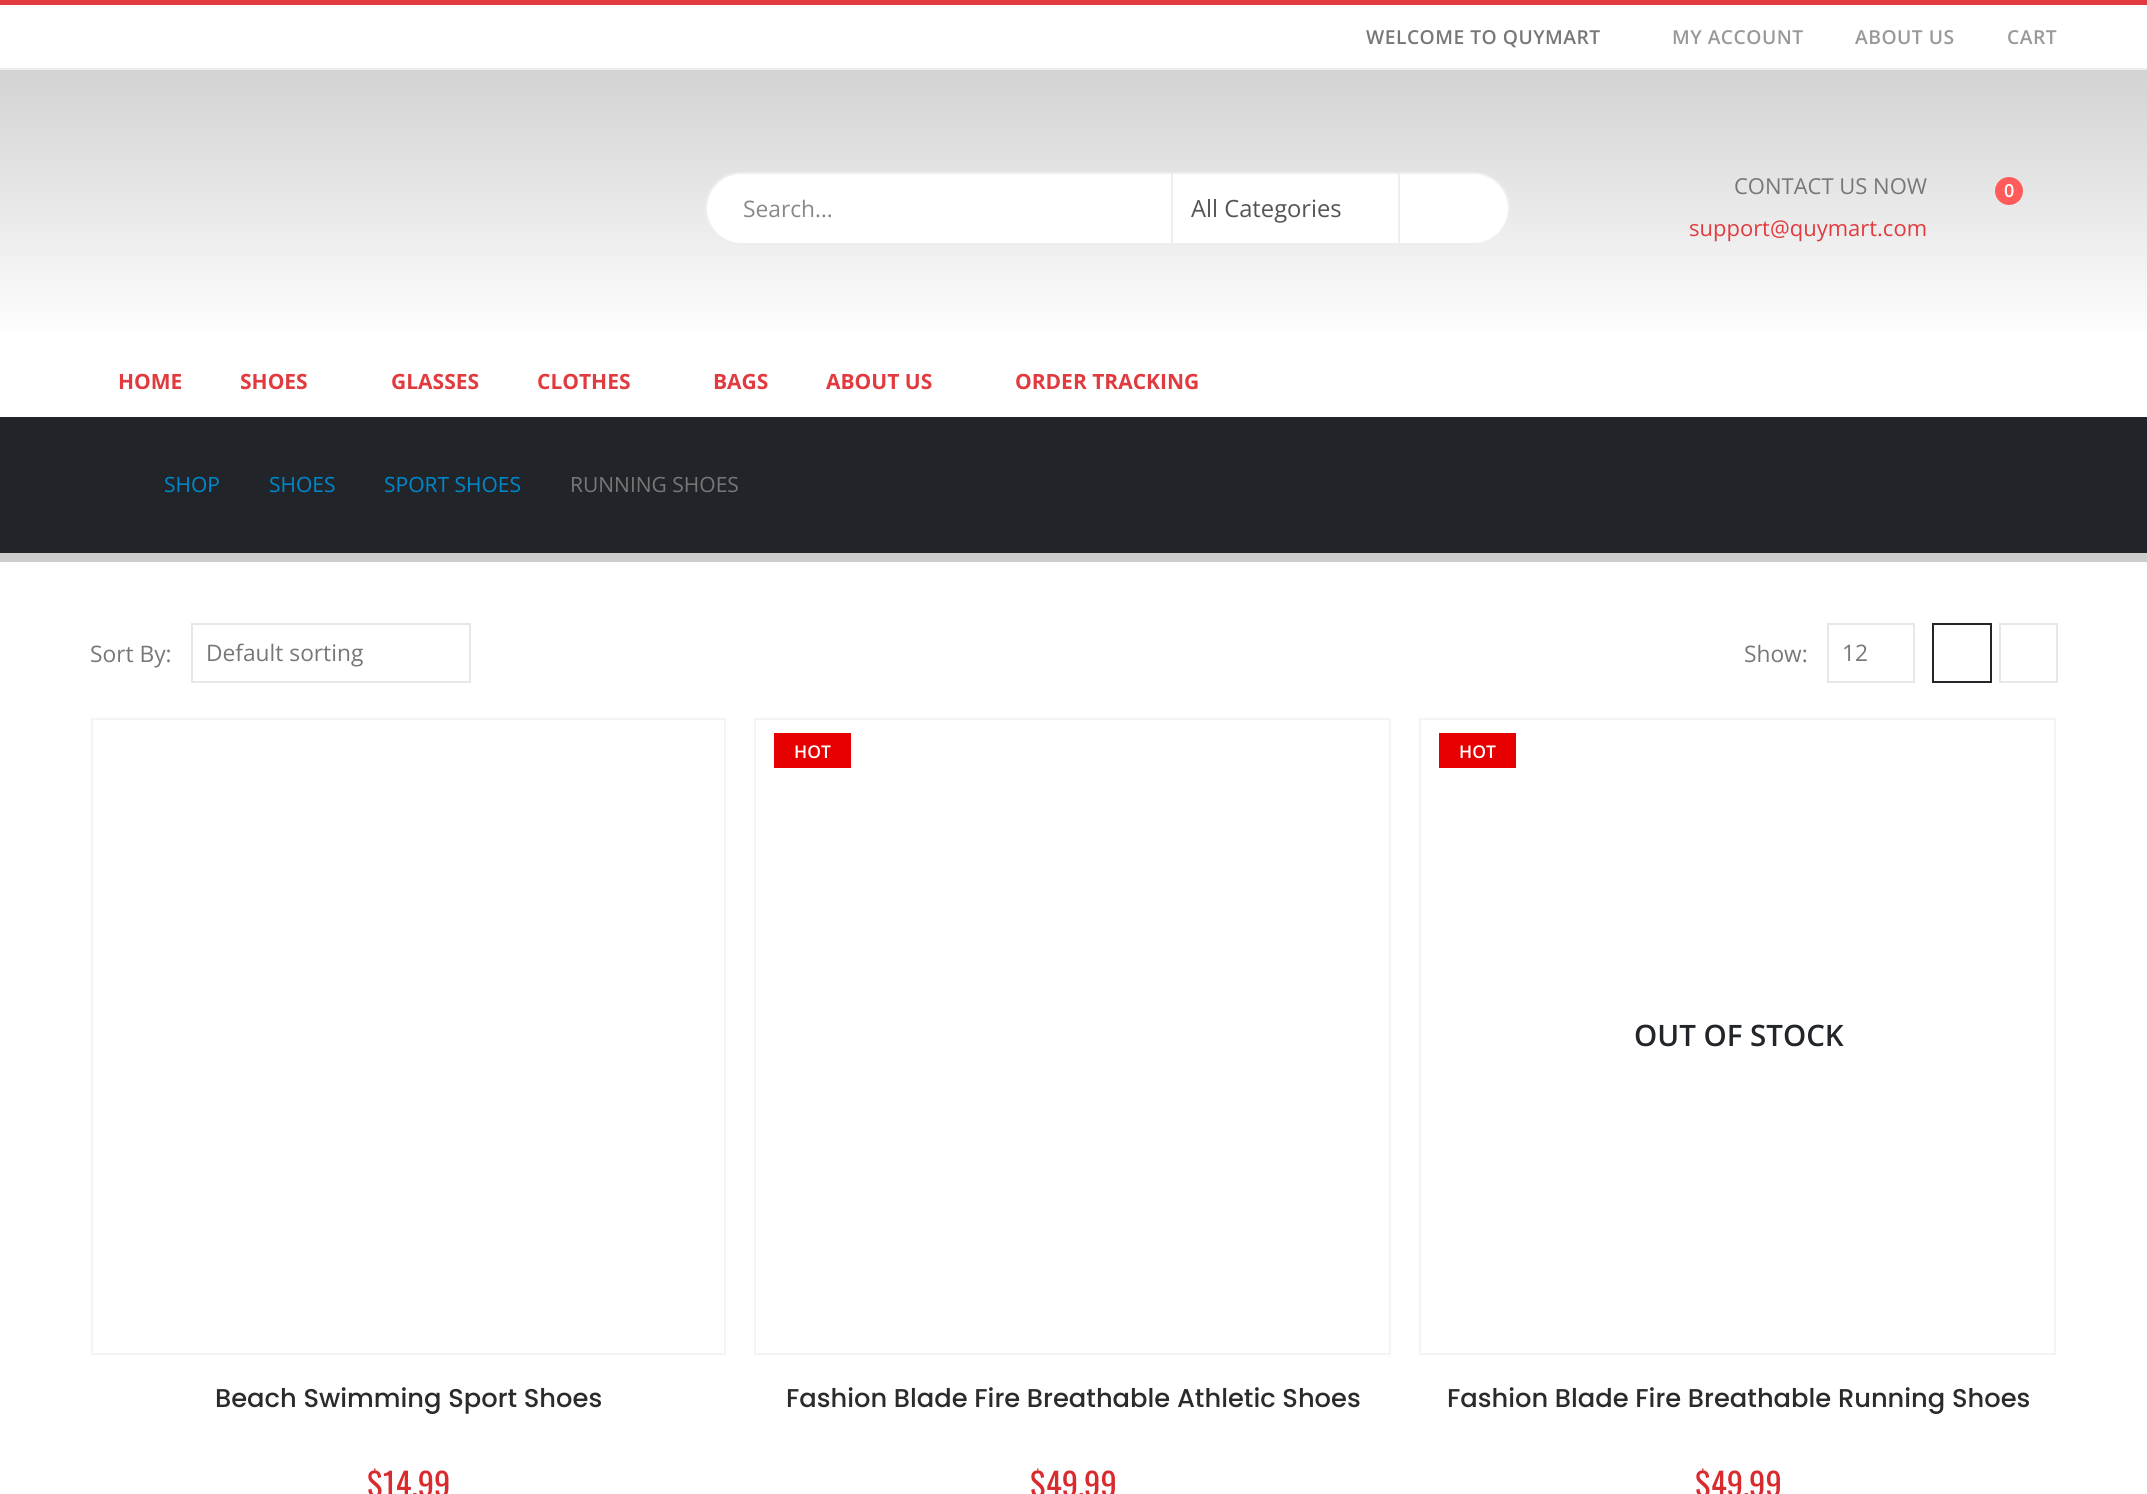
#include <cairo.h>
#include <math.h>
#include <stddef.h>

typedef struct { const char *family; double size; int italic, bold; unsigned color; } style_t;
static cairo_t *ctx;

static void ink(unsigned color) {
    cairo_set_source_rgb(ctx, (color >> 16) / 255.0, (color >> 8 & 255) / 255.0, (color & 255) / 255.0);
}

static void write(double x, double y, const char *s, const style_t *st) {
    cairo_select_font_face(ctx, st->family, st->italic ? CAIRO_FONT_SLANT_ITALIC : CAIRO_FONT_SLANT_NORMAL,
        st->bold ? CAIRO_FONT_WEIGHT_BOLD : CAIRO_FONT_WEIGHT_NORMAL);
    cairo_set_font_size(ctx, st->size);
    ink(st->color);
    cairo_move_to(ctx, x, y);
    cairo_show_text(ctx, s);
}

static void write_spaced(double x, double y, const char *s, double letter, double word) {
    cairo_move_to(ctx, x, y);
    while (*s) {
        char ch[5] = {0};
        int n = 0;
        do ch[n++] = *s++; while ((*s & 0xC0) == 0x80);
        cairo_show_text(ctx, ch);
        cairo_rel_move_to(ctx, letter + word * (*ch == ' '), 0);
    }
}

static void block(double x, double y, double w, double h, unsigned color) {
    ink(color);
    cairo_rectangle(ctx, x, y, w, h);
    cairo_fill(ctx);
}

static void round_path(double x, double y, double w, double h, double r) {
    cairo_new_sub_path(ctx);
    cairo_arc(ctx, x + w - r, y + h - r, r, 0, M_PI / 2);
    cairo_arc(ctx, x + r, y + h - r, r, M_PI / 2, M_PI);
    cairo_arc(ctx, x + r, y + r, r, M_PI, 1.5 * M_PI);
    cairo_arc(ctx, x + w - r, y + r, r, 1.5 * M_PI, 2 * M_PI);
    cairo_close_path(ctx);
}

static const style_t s1 = {"Open Sans", 22.75, 0, 0, 0x888888};
static const style_t s2 = {"Open Sans", 23.75, 0, 0, 0x555555};
static const style_t s3 = {"Open Sans", 22, 0, 0, 0x777777};
static const style_t s4 = {"Open Sans", 22, 0, 0, 0xe13b3f};
static const style_t s5 = {"Open Sans SemiBold", 18, 0, 0, 0xffffff};
static const style_t s6 = {"Open Sans", 21, 0, 1, 0xe13b3f};
static const style_t s7 = {"Open Sans", 21, 0, 0, 0x0088cc};
static const style_t s8 = {"Open Sans", 21, 0, 0, 0x777777};
static const style_t s9 = {"Open Sans", 22.75, 0, 0, 0x777777};
static const style_t s10 = {"Poppins Medium", 25.75, 0, 0, 0x2b2b2d};
static const style_t s11 = {"Oswald", 32.5, 0, 0, 0xd92a2e};
static const style_t s12 = {"Open Sans SemiBold", 17.5, 0, 0, 0xffffff};
static const style_t s13 = {"Open Sans SemiBold", 29.5, 0, 0, 0x222529};

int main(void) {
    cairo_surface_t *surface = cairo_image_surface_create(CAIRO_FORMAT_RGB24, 2147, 1494);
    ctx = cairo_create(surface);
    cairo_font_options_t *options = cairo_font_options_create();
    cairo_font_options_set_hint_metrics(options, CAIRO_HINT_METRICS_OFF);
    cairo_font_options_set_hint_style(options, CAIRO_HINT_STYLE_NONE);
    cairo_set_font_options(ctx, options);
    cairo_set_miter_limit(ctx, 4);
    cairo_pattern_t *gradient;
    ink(0xffffff);
    cairo_paint(ctx);
    block(0, 0, 2147, 5, 0xe13b3f);
    block(0, 68, 2147, 2, 0xededed);
    cairo_select_font_face(ctx, "Open Sans SemiBold", CAIRO_FONT_SLANT_NORMAL, CAIRO_FONT_WEIGHT_NORMAL);
    cairo_set_font_size(ctx, 19.25);
    ink(0x777777);
    write_spaced(1366, 44, "WELCOME TO QUYMART", 0.5, 0);
    ink(0x999999);
    write_spaced(1672, 44, "MY ACCOUNT", 0.5, 0);
    write_spaced(1855, 44, "ABOUT US", 0.5, 0);
    write_spaced(2007, 44, "CART", 0.5, 0);
    gradient = cairo_pattern_create_linear(1074, 70, 1074, 347);
    cairo_pattern_add_color_stop_rgba(gradient, 0, 0.827, 0.827, 0.827, 1);
    cairo_pattern_add_color_stop_rgba(gradient, 1, 1, 1, 1, 1);
    cairo_set_source(ctx, gradient);
    cairo_pattern_destroy(gradient);
    cairo_rectangle(ctx, 0, 70, 2147, 261);
    cairo_fill(ctx);
    ink(0xffffff);
    round_path(706, 173, 803, 71, 35.5);
    cairo_fill_preserve(ctx);
    ink(0xeeeeee);
    cairo_stroke(ctx);
    block(1171, 173, 2, 70, 0xeeeeee);
    write(743, 217, "Search…", &s1);
    block(1398, 173, 2, 70, 0xeeeeee);
    write(1191, 217, "All Categories", &s2);
    write(1734, 194, "CONTACT US NOW", &s3);
    write(1689, 236, "support@quymart.com", &s4);
    ink(0xff5b5b);
    cairo_new_path(ctx);
    cairo_arc(ctx, 2009, 191, 14, 0, 2 * M_PI);
    cairo_fill(ctx);
    write(2004, 197, "0", &s5);
    write(118, 389, "HOME", &s6);
    write(240, 389, "SHOES", &s6);
    write(391, 389, "GLASSES", &s6);
    write(537, 389, "CLOTHES", &s6);
    write(713, 389, "BAGS", &s6);
    write(826, 389, "ABOUT US", &s6);
    write(1015, 389, "ORDER TRACKING", &s6);
    block(0, 417, 2147, 136, 0x212529);
    block(0, 553, 2147, 9, 0xcccccc);
    write(164, 492, "SHOP", &s7);
    write(269, 492, "SHOES", &s7);
    write(384, 492, "SPORT SHOES", &s7);
    write(570, 492, "RUNNING SHOES", &s8);
    write(90, 662, "Sort By:", &s9);
    cairo_rectangle(ctx, 192, 624, 278, 58);
    ink(0xe7e7e7);
    cairo_stroke(ctx);
    write(206, 661, "Default sorting", &s9);
    write(1744, 662, "Show:", &s9);
    cairo_rectangle(ctx, 1828, 624, 86, 58);
    ink(0xe7e7e7);
    cairo_stroke(ctx);
    write(1842, 661, "12", &s9);
    cairo_rectangle(ctx, 1933, 624, 58, 58);
    ink(0x222529);
    cairo_stroke(ctx);
    cairo_rectangle(ctx, 2000, 624, 57, 58);
    ink(0xe7e7e7);
    cairo_stroke(ctx);
    cairo_rectangle(ctx, 92, 719, 633, 635);
    ink(0xf4f4f4);
    cairo_stroke(ctx);
    write(215, 1407, "Beach Swimming Sport Shoes", &s10);
    write(367, 1497, "$14.99", &s11);
    cairo_rectangle(ctx, 755, 719, 635, 635);
    ink(0xf4f4f4);
    cairo_stroke(ctx);
    block(774, 733, 77, 35, 0xe60000);
    write(794, 758, "HOT", &s12);
    write(786, 1407, "Fashion Blade Fire Breathable Athletic Shoes", &s10);
    write(1030, 1497, "$49.99", &s11);
    cairo_rectangle(ctx, 1420, 719, 635, 635);
    ink(0xf4f4f4);
    cairo_stroke(ctx);
    block(1439, 733, 77, 35, 0xe60000);
    write(1459, 758, "HOT", &s12);
    write(1634, 1046, "OUT OF STOCK", &s13);
    write(1447, 1407, "Fashion Blade Fire Breathable Running Shoes", &s10);
    write(1695, 1497, "$49.99", &s11);
    cairo_surface_write_to_png(surface, "screenshot.png");
    cairo_font_options_destroy(options);
    cairo_destroy(ctx);
    cairo_surface_destroy(surface);
    return 0;
}
